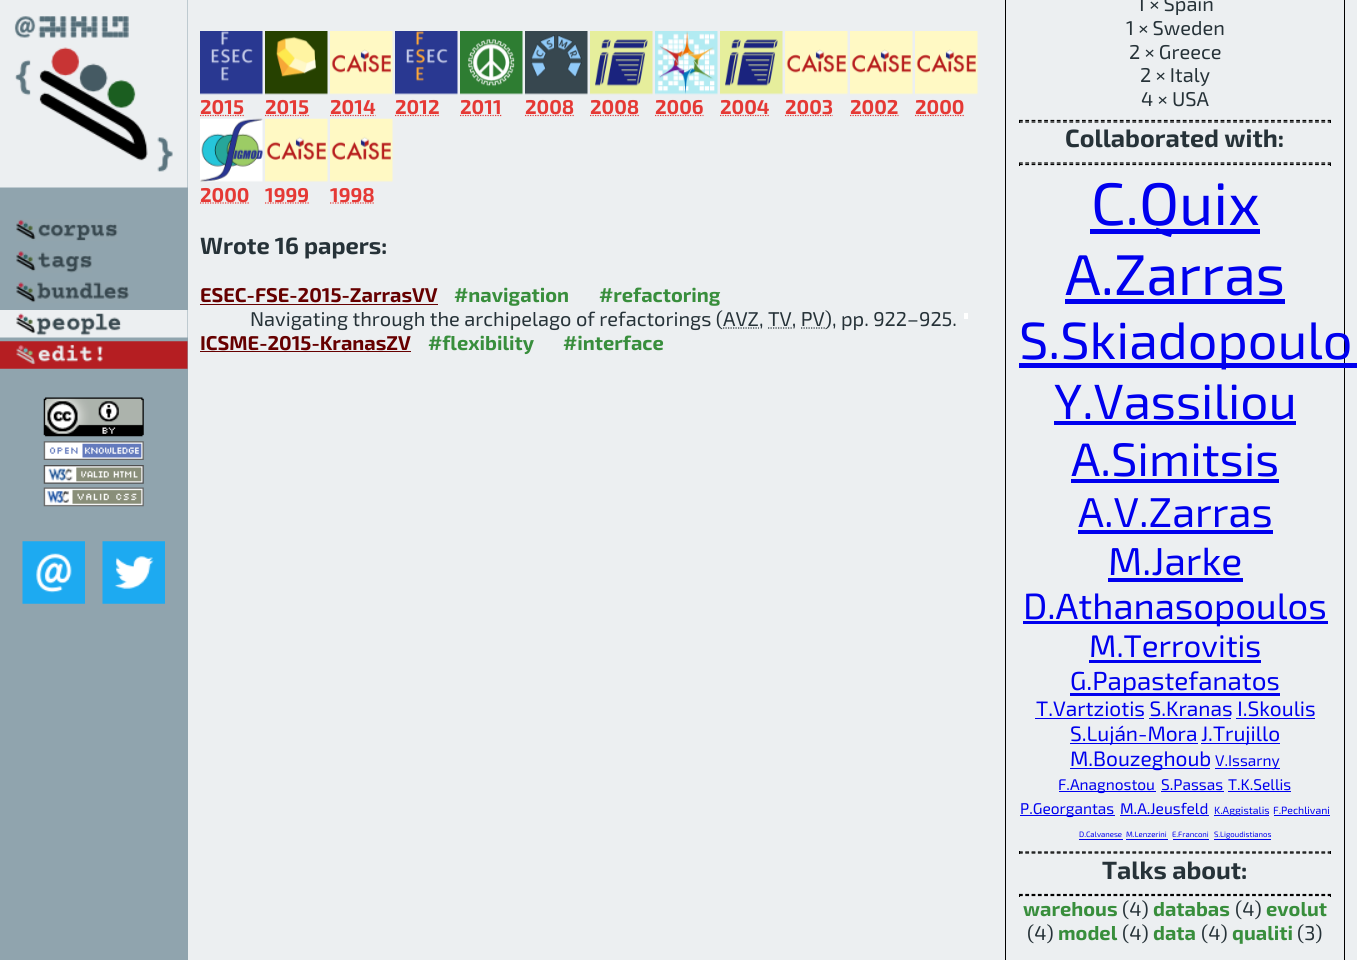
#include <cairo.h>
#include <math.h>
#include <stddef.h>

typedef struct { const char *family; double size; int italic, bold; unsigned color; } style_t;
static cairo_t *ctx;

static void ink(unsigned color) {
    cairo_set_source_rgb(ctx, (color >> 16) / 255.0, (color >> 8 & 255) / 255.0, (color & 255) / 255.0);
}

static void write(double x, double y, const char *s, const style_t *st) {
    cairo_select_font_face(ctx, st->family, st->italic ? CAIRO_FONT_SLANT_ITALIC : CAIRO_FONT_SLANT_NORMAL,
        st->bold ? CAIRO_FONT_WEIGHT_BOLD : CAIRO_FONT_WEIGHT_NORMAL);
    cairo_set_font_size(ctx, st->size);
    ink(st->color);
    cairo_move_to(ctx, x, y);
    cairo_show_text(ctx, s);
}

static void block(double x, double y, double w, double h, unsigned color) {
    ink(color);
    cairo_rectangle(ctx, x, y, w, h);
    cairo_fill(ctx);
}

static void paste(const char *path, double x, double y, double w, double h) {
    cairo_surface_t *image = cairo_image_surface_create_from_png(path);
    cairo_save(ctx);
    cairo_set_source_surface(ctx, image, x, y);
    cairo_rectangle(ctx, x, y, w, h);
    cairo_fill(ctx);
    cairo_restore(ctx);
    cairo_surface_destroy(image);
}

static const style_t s1 = {"Exo 2", 20, 0, 1, 0xe53935};
static const style_t s2 = {"Exo 2", 20, 0, 0, 0x263238};
static const style_t s3 = {"Exo 2", 25, 0, 1, 0x263238};
static const style_t s4 = {"Exo 2", 60, 0, 0, 0x0000ee};
static const style_t s5 = {"Exo 2", 57.5, 0, 0, 0x0000ee};
static const style_t s6 = {"Exo 2", 52.25, 0, 0, 0x0000ee};
static const style_t s7 = {"Exo 2", 49.5, 0, 0, 0x0000ee};
static const style_t s8 = {"Exo 2", 47, 0, 0, 0x0000ee};
static const style_t s9 = {"Exo 2", 41.75, 0, 0, 0x0000ee};
static const style_t s10 = {"Exo 2", 39, 0, 0, 0x0000ee};
static const style_t s11 = {"Exo 2", 36.5, 0, 0, 0x0000ee};
static const style_t s12 = {"Exo 2", 31.25, 0, 0, 0x0000ee};
static const style_t s13 = {"Exo 2", 26, 0, 0, 0x0000ee};
static const style_t s14 = {"Exo 2", 20.9, 0, 0, 0x0000ee};
static const style_t s15 = {"Exo 2", 15.5, 0, 0, 0x0000ee};
static const style_t s16 = {"Exo 2", 10.5, 0, 0, 0x0000ee};
static const style_t s17 = {"Exo 2", 7.75, 0, 0, 0x0000ee};
static const style_t s18 = {"Exo 2", 20, 0, 1, 0x388e3c};
static const style_t s19 = {"Exo 2", 23.5, 0, 1, 0x263238};
static const style_t s20 = {"Exo 2", 20, 0, 1, 0x660000};

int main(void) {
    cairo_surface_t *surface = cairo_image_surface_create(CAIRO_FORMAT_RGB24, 1357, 960);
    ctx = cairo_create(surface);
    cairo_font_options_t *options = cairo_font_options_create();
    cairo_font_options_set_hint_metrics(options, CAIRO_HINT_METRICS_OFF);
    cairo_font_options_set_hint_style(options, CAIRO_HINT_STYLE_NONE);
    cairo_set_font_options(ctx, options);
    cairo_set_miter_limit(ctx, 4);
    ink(0xeceff1);
    cairo_paint(ctx);
    block(0, 0, 188, 960, 0x90a4ae);
    paste("pic1.png", 0, 0, 188, 188);
    paste("pic2.png", 16, 219, 102, 22);
    paste("pic3.png", 16, 251, 76, 22);
    paste("pic4.png", 16, 282, 113, 21);
    paste("pic5.png", 0, 310, 188, 28);
    paste("pic6.png", 0, 341, 188, 28);
    paste("pic7.png", 43, 397, 101, 40);
    paste("pic8.png", 43, 441, 101, 19);
    paste("pic9.png", 43, 465, 101, 19);
    paste("pic10.png", 43, 487, 101, 20);
    paste("pic11.png", 22, 541, 63, 63);
    paste("pic12.png", 102, 541, 63, 63);
    paste("pic13.png", 200, 31, 63, 64);
    cairo_new_path(ctx);
    cairo_move_to(ctx, 200, 115.5);
    cairo_line_to(ctx, 244, 115.5);
    ink(0xe53935);
    cairo_set_line_width(ctx, 1.2);
    cairo_set_dash(ctx, (double[]){1.25, 1.25}, 2, 0);
    cairo_stroke(ctx);
    write(200, 114, "2015", &s1);
    paste("pic14.png", 265, 31, 63, 64);
    cairo_new_path(ctx);
    cairo_move_to(ctx, 265, 115.5);
    cairo_line_to(ctx, 309, 115.5);
    cairo_stroke(ctx);
    write(265, 114, "2015", &s1);
    paste("pic15.png", 330, 31, 63, 64);
    cairo_new_path(ctx);
    cairo_move_to(ctx, 330, 115.5);
    cairo_line_to(ctx, 375.5, 115.5);
    cairo_stroke(ctx);
    write(330, 114, "2014", &s1);
    paste("pic16.png", 395, 31, 63, 64);
    cairo_new_path(ctx);
    cairo_move_to(ctx, 395, 115.5);
    cairo_line_to(ctx, 439.5, 115.5);
    cairo_stroke(ctx);
    write(395, 114, "2012", &s1);
    paste("pic17.png", 460, 31, 63, 64);
    cairo_new_path(ctx);
    cairo_move_to(ctx, 460, 115.5);
    cairo_line_to(ctx, 501.5, 115.5);
    cairo_stroke(ctx);
    write(460, 114, "2011", &s1);
    paste("pic18.png", 525, 31, 63, 64);
    cairo_new_path(ctx);
    cairo_move_to(ctx, 525, 115.5);
    cairo_line_to(ctx, 574.5, 115.5);
    cairo_stroke(ctx);
    write(525, 114, "2008", &s1);
    paste("pic19.png", 590, 31, 63, 64);
    cairo_new_path(ctx);
    cairo_move_to(ctx, 590, 115.5);
    cairo_line_to(ctx, 639.5, 115.5);
    cairo_stroke(ctx);
    write(590, 114, "2008", &s1);
    paste("pic20.png", 655, 31, 63, 64);
    cairo_new_path(ctx);
    cairo_move_to(ctx, 655, 115.5);
    cairo_line_to(ctx, 703.5, 115.5);
    cairo_stroke(ctx);
    write(655, 114, "2006", &s1);
    paste("pic21.png", 720, 31, 63, 64);
    cairo_new_path(ctx);
    cairo_move_to(ctx, 720, 115.5);
    cairo_line_to(ctx, 769.5, 115.5);
    cairo_stroke(ctx);
    write(720, 114, "2004", &s1);
    paste("pic22.png", 785, 31, 63, 64);
    cairo_new_path(ctx);
    cairo_move_to(ctx, 785, 115.5);
    cairo_line_to(ctx, 833, 115.5);
    cairo_stroke(ctx);
    write(785, 114, "2003", &s1);
    paste("pic15.png", 850, 31, 63, 64);
    cairo_new_path(ctx);
    cairo_move_to(ctx, 850, 115.5);
    cairo_line_to(ctx, 898.5, 115.5);
    cairo_stroke(ctx);
    write(850, 114, "2002", &s1);
    paste("pic15.png", 915, 31, 63, 64);
    cairo_new_path(ctx);
    cairo_move_to(ctx, 915, 115.5);
    cairo_line_to(ctx, 964.5, 115.5);
    cairo_stroke(ctx);
    write(915, 114, "2000", &s1);
    paste("pic23.png", 200, 118, 63, 64);
    cairo_new_path(ctx);
    cairo_move_to(ctx, 200, 203);
    cairo_line_to(ctx, 249.5, 203);
    cairo_stroke(ctx);
    write(200, 202, "2000", &s1);
    paste("pic24.png", 265, 118, 63, 64);
    cairo_new_path(ctx);
    cairo_move_to(ctx, 265, 203);
    cairo_line_to(ctx, 309, 203);
    cairo_stroke(ctx);
    write(265, 202, "1999", &s1);
    paste("pic24.png", 330, 118, 63, 64);
    cairo_new_path(ctx);
    cairo_move_to(ctx, 330, 203);
    cairo_line_to(ctx, 374.5, 203);
    cairo_stroke(ctx);
    write(330, 202, "1998", &s1);
    cairo_rectangle(ctx, 1005.5, -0.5, 339, 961);
    ink(0x000000);
    cairo_set_line_width(ctx, 1);
    cairo_set_dash(ctx, NULL, 0, 0);
    cairo_stroke(ctx);
    write(1137, 11, "1 × Spain", &s2);
    write(1126, 35, "1 × Sweden", &s2);
    write(1129, 59, "2 × Greece", &s2);
    write(1140, 82, "2 × Italy", &s2);
    write(1141, 106, "4 × USA", &s2);
    cairo_new_path(ctx);
    cairo_move_to(ctx, 1019, 120.5);
    cairo_line_to(ctx, 1331, 120.5);
    ink(0x000000);
    cairo_set_line_width(ctx, 1.2);
    cairo_set_dash(ctx, (double[]){3.75, 2.55}, 2, 0);
    cairo_stroke(ctx);
    block(1330, 120, 1, 3, 0x000000);
    cairo_new_path(ctx);
    cairo_move_to(ctx, 1019, 122);
    cairo_line_to(ctx, 1331, 122);
    cairo_stroke(ctx);
    block(1019, 120, 1, 3, 0x000000);
    write(1065, 147, "Collaborated with:", &s3);
    cairo_new_path(ctx);
    cairo_move_to(ctx, 1019, 163);
    cairo_line_to(ctx, 1331, 163);
    ink(0x000000);
    cairo_stroke(ctx);
    block(1330, 163, 1, 3, 0x000000);
    cairo_new_path(ctx);
    cairo_move_to(ctx, 1019, 164.5);
    cairo_line_to(ctx, 1331, 164.5);
    cairo_stroke(ctx);
    block(1019, 163, 1, 3, 0x000000);
    block(1090, 229, 170, 5, 0x0000ee);
    write(1091, 225, "C.Quix", &s4);
    write(1065, 295, "A.Zarras", &s5);
    block(1065, 299, 220, 5, 0x0000ee);
    block(1019, 363, 338, 5, 0x0000ee);
    write(1019, 359, "S.Skiadopoulo", &s6);
    write(1054, 419, "Y.Vassiliou", &s7);
    block(1054, 421, 242, 4, 0x0000ee);
    write(1071, 476, "A.Simitsis", &s8);
    block(1071, 479, 208, 4, 0x0000ee);
    write(1078, 527, "A.V.Zarras", &s9);
    block(1078, 530, 195, 4, 0x0000ee);
    write(1108, 575, "M.Jarke", &s10);
    block(1108, 578, 135, 4, 0x0000ee);
    block(1023, 621, 305, 3, 0x0000ee);
    write(1023, 619, "D.Athanasopoulos", &s11);
    write(1089, 657, "M.Terrovitis", &s12);
    block(1089, 660, 172, 3, 0x0000ee);
    block(1070, 693, 210, 3, 0x0000ee);
    write(1070, 690, "G.Papastefanatos", &s13);
    write(1036, 716, "T.Vartziotis S.Kranas I.Skoulis", &s14);
    block(1035, 718, 109, 1, 0x0000ee);
    block(1149, 718, 82, 1, 0x0000ee);
    block(1236, 718, 79, 1, 0x0000ee);
    block(1070, 743, 128, 1, 0x0000ee);
    write(1070, 741, "S.Luján-Mora", &s14);
    block(1201, 743, 79, 1, 0x0000ee);
    write(1201, 741, "J.Trujillo", &s14);
    block(1070, 768, 140, 1, 0x0000ee);
    write(1070, 766, "M.Bouzeghoub", &s14);
    block(1215, 768, 65, 1, 0x0000ee);
    write(1215, 766, "V.Issarny", &s15);
    block(1059, 791, 97, 1, 0x0000ee);
    write(1058, 790, "F.Anagnostou", &s15);
    write(1161, 790, "S.Passas", &s15);
    block(1161, 791, 63, 1, 0x0000ee);
    write(1228, 790, "T.K.Sellis", &s15);
    block(1228, 791, 63, 1, 0x0000ee);
    block(1020, 815, 95, 1, 0x0000ee);
    write(1020, 814, "P.Georgantas", &s15);
    write(1120, 814, "M.A.Jeusfeld", &s15);
    block(1120, 815, 89, 1, 0x0000ee);
    block(1214, 815, 55, 1, 0x0000ee);
    write(1214, 814, "K.Aggistalis", &s16);
    write(1273, 814, "F.Pechlivani", &s16);
    block(1274, 815, 56, 1, 0x0000ee);
    write(1079, 837, "D.Calvanese", &s17);
    block(1079, 839, 44, 1, 0x0000ee);
    write(1126, 837, "M.Lenzerini", &s17);
    block(1126, 839, 42, 1, 0x0000ee);
    write(1172, 837, "E.Franconi", &s17);
    block(1173, 839, 36, 1, 0x0000ee);
    write(1214, 837, "S.Ligoudistianos", &s17);
    block(1214, 839, 57, 1, 0x0000ee);
    cairo_new_path(ctx);
    cairo_move_to(ctx, 1019, 852);
    cairo_line_to(ctx, 1331, 852);
    ink(0x000000);
    cairo_stroke(ctx);
    block(1330, 851, 1, 3, 0x000000);
    cairo_new_path(ctx);
    cairo_move_to(ctx, 1019, 853);
    cairo_line_to(ctx, 1331, 853);
    cairo_stroke(ctx);
    block(1019, 851, 1, 3, 0x000000);
    write(1102, 879, "Talks about:", &s3);
    cairo_new_path(ctx);
    cairo_move_to(ctx, 1019, 894.5);
    cairo_line_to(ctx, 1331, 894.5);
    ink(0x000000);
    cairo_stroke(ctx);
    block(1330, 894, 1, 3, 0x000000);
    cairo_new_path(ctx);
    cairo_move_to(ctx, 1019, 895.5);
    cairo_line_to(ctx, 1331, 895.5);
    cairo_stroke(ctx);
    block(1019, 894, 1, 3, 0x000000);
    write(1023, 916, "warehous", &s18);
    write(1122, 916, "(4)", &s2);
    write(1153, 916, "databas", &s18);
    write(1235, 916, "(4)", &s2);
    write(1266, 916, "evolut", &s18);
    write(1027, 940, "(4)", &s2);
    write(1058, 940, "model", &s18);
    write(1122, 940, "(4)", &s2);
    write(1153, 940, "data", &s18);
    write(1201, 940, "(4)", &s2);
    write(1232, 940, "qualiti", &s18);
    write(1297, 940, "(3)", &s2);
    write(200, 254, "Wrote 16 papers:", &s19);
    write(200, 302, "ESEC-FSE-2015-ZarrasVV", &s20);
    block(200, 304, 238, 1, 0x660000);
    write(454, 302, "#navigation", &s18);
    write(599, 302, "#refactoring", &s18);
    write(250, 326, "Navigating through the archipelago of refactorings (AVZ, TV, PV), pp. 922–925.", &s2);
    cairo_new_path(ctx);
    cairo_move_to(ctx, 723, 328);
    cairo_line_to(ctx, 759, 328);
    cairo_set_dash(ctx, (double[]){1.25, 1.25}, 2, 0);
    cairo_stroke(ctx);
    cairo_new_path(ctx);
    cairo_move_to(ctx, 768, 328);
    cairo_line_to(ctx, 792, 328);
    cairo_move_to(ctx, 801, 328);
    cairo_line_to(ctx, 825, 328);
    cairo_stroke(ctx);
    block(964, 313, 4, 6, 0xffffff);
    write(200, 350, "ICSME-2015-KranasZV", &s20);
    block(200, 351, 211, 1, 0x660000);
    write(428, 350, "#flexibility", &s18);
    write(563, 350, "#interface", &s18);
    cairo_surface_write_to_png(surface, "screenshot.png");
    cairo_font_options_destroy(options);
    cairo_destroy(ctx);
    cairo_surface_destroy(surface);
    return 0;
}
